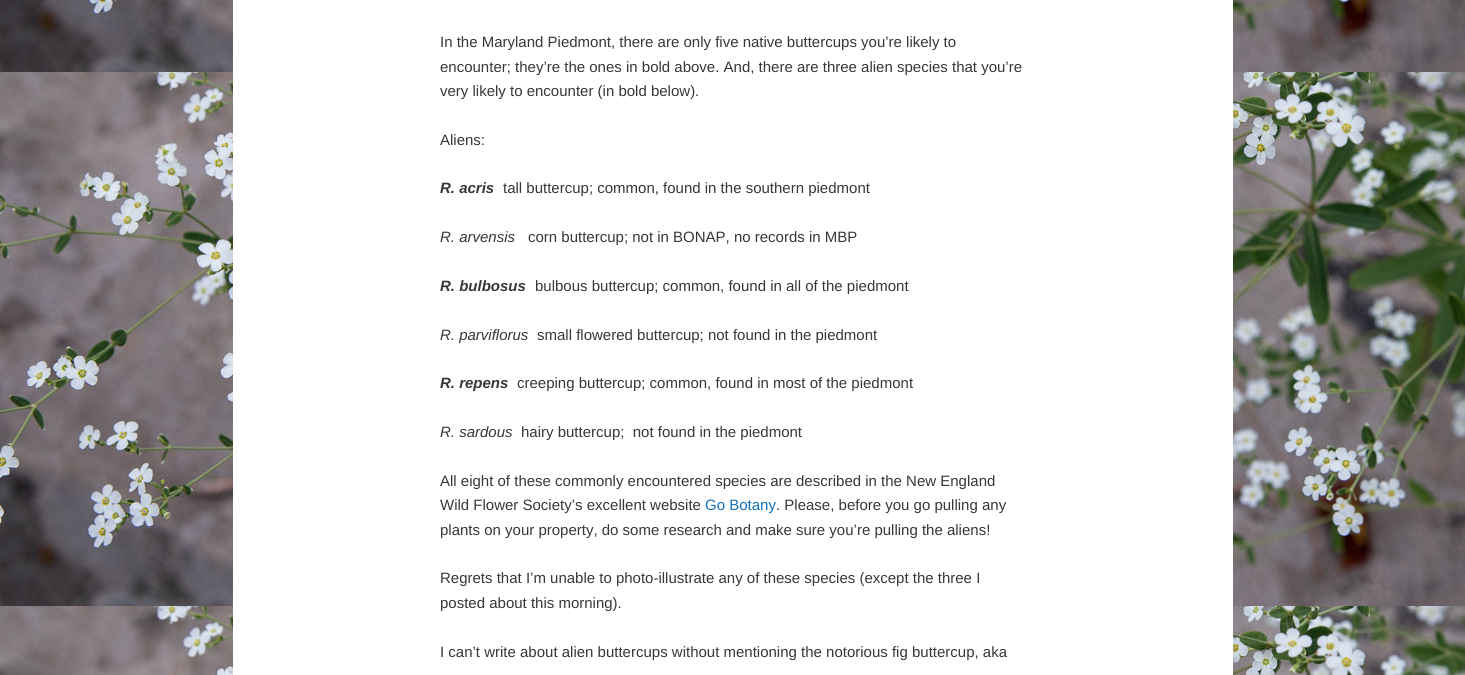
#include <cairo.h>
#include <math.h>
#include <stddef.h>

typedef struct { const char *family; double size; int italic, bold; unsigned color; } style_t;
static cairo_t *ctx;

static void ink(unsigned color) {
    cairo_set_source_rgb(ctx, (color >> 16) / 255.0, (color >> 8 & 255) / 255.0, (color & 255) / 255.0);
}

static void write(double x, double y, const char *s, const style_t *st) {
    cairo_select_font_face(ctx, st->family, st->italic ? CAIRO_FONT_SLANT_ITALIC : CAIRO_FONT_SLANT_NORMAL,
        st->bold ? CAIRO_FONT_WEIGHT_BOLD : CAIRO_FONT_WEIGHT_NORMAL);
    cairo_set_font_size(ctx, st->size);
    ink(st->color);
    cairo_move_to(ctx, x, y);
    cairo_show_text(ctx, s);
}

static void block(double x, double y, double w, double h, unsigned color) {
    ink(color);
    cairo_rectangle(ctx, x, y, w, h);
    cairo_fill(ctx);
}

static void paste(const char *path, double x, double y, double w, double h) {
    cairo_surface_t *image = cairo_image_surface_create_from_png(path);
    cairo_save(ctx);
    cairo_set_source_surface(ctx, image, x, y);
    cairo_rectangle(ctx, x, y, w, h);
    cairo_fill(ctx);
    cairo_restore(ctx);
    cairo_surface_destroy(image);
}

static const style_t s1 = {"Liberation Sans", 15, 0, 0, 0x373737};
static const style_t s2 = {"Liberation Sans", 15, 1, 1, 0x373737};
static const style_t s3 = {"Liberation Sans", 15, 1, 0, 0x373737};
static const style_t s4 = {"Liberation Sans", 15, 0, 0, 0x1470b7};

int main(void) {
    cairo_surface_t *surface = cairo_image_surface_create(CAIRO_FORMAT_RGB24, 1465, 675);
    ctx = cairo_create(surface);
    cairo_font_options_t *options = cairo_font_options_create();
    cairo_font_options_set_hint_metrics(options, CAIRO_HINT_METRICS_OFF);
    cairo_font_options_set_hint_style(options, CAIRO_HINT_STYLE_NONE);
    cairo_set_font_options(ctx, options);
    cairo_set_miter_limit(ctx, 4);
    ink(0xffffff);
    cairo_paint(ctx);
    paste("pic1.png", 0, 0, 1465, 675);
    block(233, 0, 1000, 675, 0xffffff);
    write(440, 47, "In the Maryland Piedmont, there are only five native buttercups you’re likely to", &s1);
    write(440, 72, "encounter; they’re the ones in bold above. And, there are three alien species that you’re", &s1);
    write(440, 96, "very likely to encounter (in bold below).", &s1);
    write(440, 145, "Aliens:", &s1);
    write(440, 193, "R. acris", &s2);
    write(503, 193, "tall buttercup; common, found in the southern piedmont", &s1);
    write(440, 242, "R. arvensis", &s3);
    write(528, 242, "corn buttercup; not in BONAP, no records in MBP", &s1);
    write(440, 291, "R. bulbosus", &s2);
    write(535, 291, "bulbous buttercup; common, found in all of the piedmont", &s1);
    write(440, 340, "R. parviflorus", &s3);
    write(537, 340, "small flowered buttercup; not found in the piedmont", &s1);
    write(440, 388, "R. repens", &s2);
    write(517, 388, "creeping buttercup; common, found in most of the piedmont", &s1);
    write(440, 437, "R. sardous", &s3);
    write(521, 437, "hairy buttercup;  not found in the piedmont", &s1);
    write(440, 486, "All eight of these commonly encountered species are described in the New England", &s1);
    write(440, 510, "Wild Flower Society’s excellent website", &s1);
    write(705, 510, "Go Botany", &s4);
    write(776, 510, ". Please, before you go pulling any", &s1);
    write(440, 535, "plants on your property, do some research and make sure you’re pulling the aliens!", &s1);
    write(440, 583, "Regrets that I’m unable to photo-illustrate any of these species (except the three I", &s1);
    write(440, 608, "posted about this morning).", &s1);
    write(440, 657, "I can’t write about alien buttercups without mentioning the notorious fig buttercup, aka", &s1);
    cairo_surface_write_to_png(surface, "screenshot.png");
    cairo_font_options_destroy(options);
    cairo_destroy(ctx);
    cairo_surface_destroy(surface);
    return 0;
}
